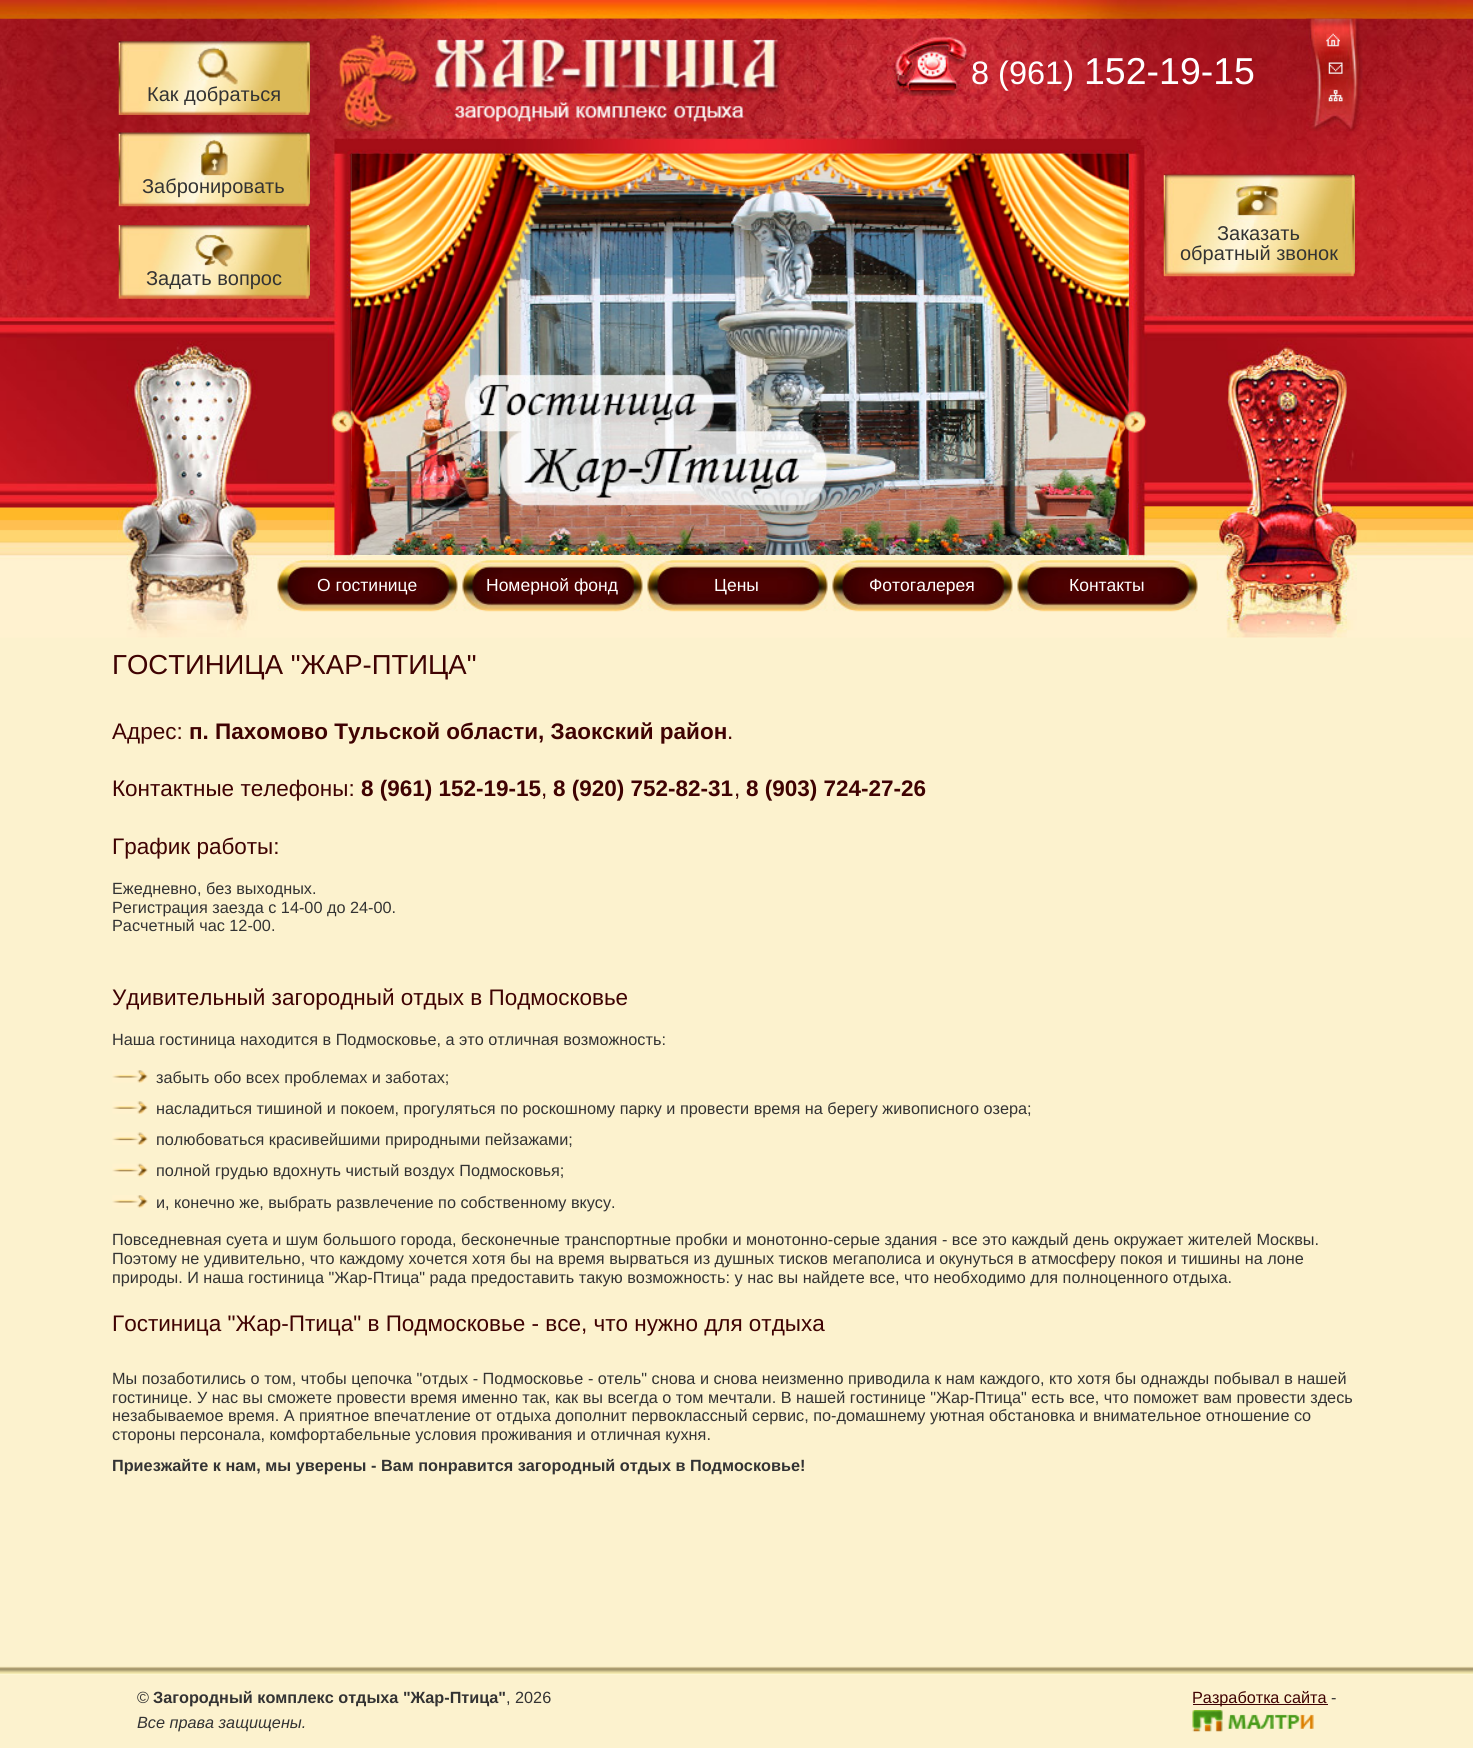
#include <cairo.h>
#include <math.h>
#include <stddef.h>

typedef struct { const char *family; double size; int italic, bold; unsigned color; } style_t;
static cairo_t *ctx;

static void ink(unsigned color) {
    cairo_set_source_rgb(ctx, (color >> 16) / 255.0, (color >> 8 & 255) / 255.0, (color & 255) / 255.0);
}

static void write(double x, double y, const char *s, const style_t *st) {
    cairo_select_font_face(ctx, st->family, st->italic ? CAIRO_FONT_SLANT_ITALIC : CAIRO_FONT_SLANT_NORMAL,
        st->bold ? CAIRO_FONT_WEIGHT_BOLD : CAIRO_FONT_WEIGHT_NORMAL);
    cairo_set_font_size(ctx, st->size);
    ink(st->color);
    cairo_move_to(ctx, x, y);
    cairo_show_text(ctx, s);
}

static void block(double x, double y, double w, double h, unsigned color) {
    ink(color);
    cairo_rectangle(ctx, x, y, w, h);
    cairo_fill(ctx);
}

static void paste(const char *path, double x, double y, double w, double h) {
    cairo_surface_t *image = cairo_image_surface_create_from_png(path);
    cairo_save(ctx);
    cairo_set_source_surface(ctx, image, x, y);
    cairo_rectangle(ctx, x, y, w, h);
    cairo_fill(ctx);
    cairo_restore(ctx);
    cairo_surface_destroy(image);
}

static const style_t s1 = {"Liberation Sans", 32.5, 0, 0, 0xffffff};
static const style_t s2 = {"Liberation Sans", 37.5, 0, 0, 0xffffff};
static const style_t s3 = {"Liberation Sans", 20, 0, 0, 0x333333};
static const style_t s4 = {"Liberation Sans", 17.5, 0, 0, 0xffffff};
static const style_t s5 = {"Liberation Sans", 27.5, 0, 0, 0x3f0202};
static const style_t s6 = {"Liberation Sans", 22.5, 0, 0, 0x3f0202};
static const style_t s7 = {"Liberation Sans", 22.5, 0, 1, 0x3f0202};
static const style_t s8 = {"Liberation Sans", 16.25, 0, 0, 0x333333};
static const style_t s9 = {"Liberation Sans", 16.25, 0, 1, 0x333333};
static const style_t s10 = {"Liberation Sans", 16.25, 1, 0, 0x333333};
static const style_t s11 = {"Liberation Sans", 16.25, 0, 0, 0x3f0202};

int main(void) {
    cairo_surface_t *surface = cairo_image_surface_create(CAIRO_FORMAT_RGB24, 1473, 1748);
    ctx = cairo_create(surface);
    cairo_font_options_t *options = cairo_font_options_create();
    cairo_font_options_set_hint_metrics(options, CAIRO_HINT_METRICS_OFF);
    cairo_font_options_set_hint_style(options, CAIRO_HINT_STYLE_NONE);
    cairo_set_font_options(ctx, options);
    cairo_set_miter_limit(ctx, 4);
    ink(0xfcf2ce);
    cairo_paint(ctx);
    paste("pic1.png", 0, 0, 1473, 638);
    paste("pic2.png", 336, 18, 448, 114);
    paste("pic3.png", 890, 18, 80, 79);
    write(971, 84, "8 (961)", &s1);
    write(1084, 84, "152-19-15", &s2);
    paste("pic4.png", 1306, 18, 57, 114);
    paste("pic5.png", 1326, 33, 14, 14);
    paste("pic6.png", 1328, 61, 15, 13);
    paste("pic7.png", 1328, 89, 15, 13);
    paste("pic8.png", 118, 41, 192, 74);
    write(147, 101, "Как добраться", &s3);
    paste("pic9.png", 118, 132, 192, 75);
    write(142, 193, "Забронировать", &s3);
    paste("pic10.png", 118, 225, 192, 74);
    write(146, 285, "Задать вопрос", &s3);
    paste("pic11.png", 351, 153, 777, 402);
    paste("pic12.png", 1127, 153, 2, 402);
    paste("pic14.png", 351, 153, 778, 402);
    paste("pic13.png", 331, 410, 23, 23);
    paste("pic15.png", 1123, 411, 24, 22);
    paste("pic16.png", 1163, 173, 192, 104);
    write(1217, 240, "Заказать", &s3);
    write(1180, 260, "обратный звонок", &s3);
    paste("pic17.png", 277, 560, 181, 52);
    write(317, 591, "О гостинице", &s4);
    paste("pic18.png", 462, 560, 181, 52);
    write(486, 591, "Номерной фонд", &s4);
    paste("pic19.png", 647, 560, 181, 52);
    write(714, 591, "Цены", &s4);
    paste("pic20.png", 832, 560, 181, 52);
    write(869, 591, "Фотогалерея", &s4);
    paste("pic19.png", 1017, 560, 181, 52);
    write(1069, 591, "Контакты", &s4);
    write(112, 674, "ГОСТИНИЦА \"ЖАР-ПТИЦА\"", &s5);
    write(112, 739, "Адрес:", &s6);
    write(189, 739, "п. Пахомово Тульской области, Заокский район", &s7);
    write(727, 739, ".", &s6);
    write(112, 796, "Контактные телефоны:", &s6);
    write(361, 796, "8 (961) 152-19-15", &s7);
    write(541, 796, ",", &s6);
    write(553, 796, "8 (920) 752-82-31", &s7);
    write(734, 796, ",", &s6);
    write(746, 796, "8 (903) 724-27-26", &s7);
    write(112, 854, "График работы:", &s6);
    write(112, 894, "Ежедневно, без выходных.", &s8);
    write(112, 913, "Регистрация заезда с 14-00 до 24-00.", &s8);
    write(112, 931, "Расчетный час 12-00.", &s8);
    write(112, 1005, "Удивительный загородный отдых в Подмосковье", &s6);
    write(112, 1045, "Наша гостиница находится в Подмосковье, а это отличная возможность:", &s8);
    paste("pic21.png", 112, 1070, 36, 13);
    write(156, 1083, "забыть обо всех проблемах и заботах;", &s8);
    paste("pic22.png", 112, 1101, 36, 13);
    write(156, 1114, "насладиться тишиной и покоем, прогуляться по роскошному парку и провести время на берегу живописного озера;", &s8);
    paste("pic23.png", 112, 1132, 36, 13);
    write(156, 1145, "полюбоваться красивейшими природными пейзажами;", &s8);
    paste("pic24.png", 112, 1163, 36, 14);
    write(156, 1176, "полной грудью вдохнуть чистый воздух Подмосковья;", &s8);
    paste("pic21.png", 112, 1195, 36, 13);
    write(156, 1208, "и, конечно же, выбрать развлечение по собственному вкусу.", &s8);
    write(112, 1245, "Повседневная суета и шум большого города, бесконечные транспортные пробки и монотонно-серые здания - все это каждый день окружает жителей Москвы.", &s8);
    write(112, 1264, "Поэтому не удивительно, что каждому хочется хотя бы на время вырваться из душных тисков мегаполиса и окунуться в атмосферу покоя и тишины на лоне", &s8);
    write(112, 1283, "природы. И наша гостиница \"Жар-Птица\" рада предоставить такую возможность: у нас вы найдете все, что необходимо для полноценного отдыха.", &s8);
    write(112, 1331, "Гостиница \"Жар-Птица\" в Подмосковье - все, что нужно для отдыха", &s6);
    write(112, 1384, "Мы позаботились о том, чтобы цепочка \"отдых - Подмосковье - отель\" снова и снова неизменно приводила к нам каждого, кто хотя бы однажды побывал в нашей", &s8);
    write(112, 1403, "гостинице. У нас вы сможете провести время именно так, как вы всегда о том мечтали. В нашей гостинице \"Жар-Птица\" есть все, что поможет вам провести здесь", &s8);
    write(112, 1421, "незабываемое время. А приятное впечатление от отдыха дополнит первоклассный сервис, по-домашнему уютная обстановка и внимательное отношение со", &s8);
    write(112, 1440, "стороны персонала, комфортабельные условия проживания и отличная кухня.", &s8);
    write(112, 1471, "Приезжайте к нам, мы уверены - Вам понравится загородный отдых в Подмосковье!", &s9);
    paste("pic25.png", 0, 1666, 1473, 9);
    write(137, 1703, "©", &s8);
    write(153, 1703, "Загородный комплекс отдыха \"Жар-Птица\"", &s9);
    write(506, 1703, ", 2026", &s8);
    write(137, 1728, "Все права защищены.", &s10);
    block(1193, 1704, 135, 1, 0x3f0202);
    write(1192, 1703, "Разработка сайта", &s11);
    write(1331, 1703, "-", &s8);
    paste("pic26.png", 1192, 1710, 122, 22);
    cairo_surface_write_to_png(surface, "screenshot.png");
    cairo_font_options_destroy(options);
    cairo_destroy(ctx);
    cairo_surface_destroy(surface);
    return 0;
}
